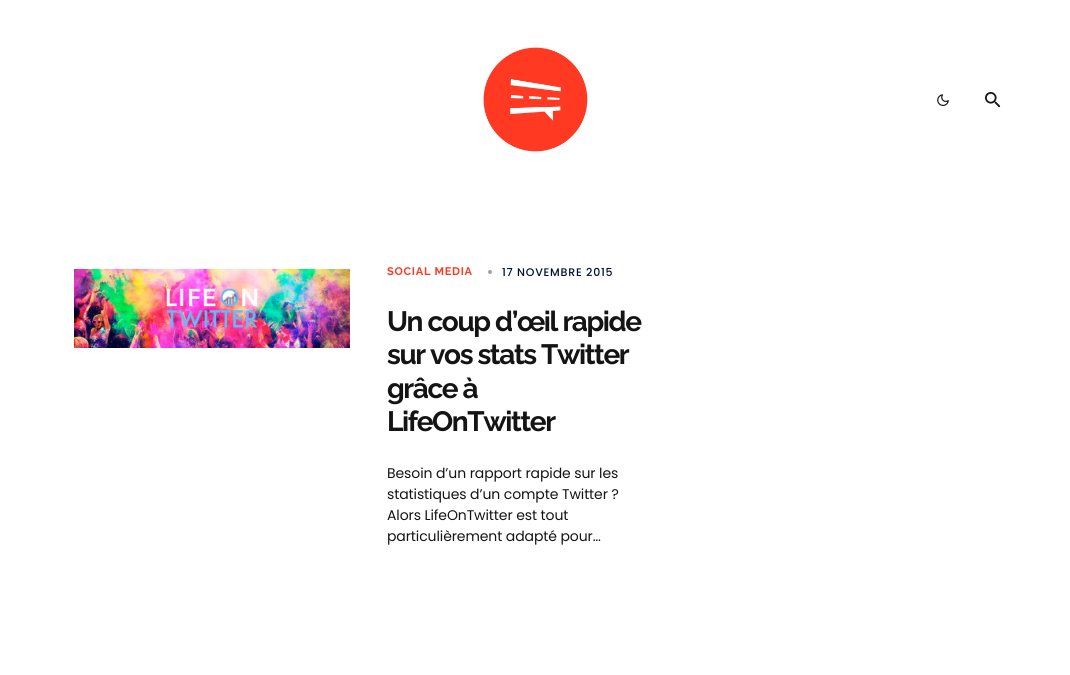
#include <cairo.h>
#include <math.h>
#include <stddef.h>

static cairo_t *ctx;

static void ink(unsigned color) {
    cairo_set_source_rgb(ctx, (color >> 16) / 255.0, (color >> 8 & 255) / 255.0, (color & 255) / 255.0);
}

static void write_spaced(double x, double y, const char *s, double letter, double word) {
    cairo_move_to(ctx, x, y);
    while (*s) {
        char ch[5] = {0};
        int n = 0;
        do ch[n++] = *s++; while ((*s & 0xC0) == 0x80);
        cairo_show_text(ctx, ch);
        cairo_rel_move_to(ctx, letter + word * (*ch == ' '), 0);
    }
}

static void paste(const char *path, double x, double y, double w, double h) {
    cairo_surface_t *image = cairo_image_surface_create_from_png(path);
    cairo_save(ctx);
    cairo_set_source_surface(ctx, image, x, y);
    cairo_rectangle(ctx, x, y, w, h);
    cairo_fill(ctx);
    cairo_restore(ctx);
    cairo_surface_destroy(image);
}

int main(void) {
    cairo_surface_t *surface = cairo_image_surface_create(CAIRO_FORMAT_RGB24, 1070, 675);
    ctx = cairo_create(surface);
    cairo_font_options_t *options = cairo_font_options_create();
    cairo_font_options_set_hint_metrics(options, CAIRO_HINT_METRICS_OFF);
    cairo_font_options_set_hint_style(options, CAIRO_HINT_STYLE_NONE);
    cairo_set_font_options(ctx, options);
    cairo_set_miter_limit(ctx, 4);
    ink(0xffffff);
    cairo_paint(ctx);
    paste("pic1.png", 483, 47, 105, 105);
    paste("pic2.png", 937, 94, 12, 12);
    paste("pic3.png", 985, 92, 16, 16);
    paste("pic4.png", 74, 269, 276, 79);
    cairo_select_font_face(ctx, "Raleway", CAIRO_FONT_SLANT_NORMAL, CAIRO_FONT_WEIGHT_BOLD);
    cairo_set_font_size(ctx, 11);
    ink(0xff3922);
    write_spaced(387, 275, "SOCIAL MEDIA", 0.75, 0);
    ink(0xa1a1a1);
    cairo_new_path(ctx);
    cairo_arc(ctx, 490, 272, 2, 0, 2 * M_PI);
    cairo_fill(ctx);
    cairo_select_font_face(ctx, "Poppins Medium", CAIRO_FONT_SLANT_NORMAL, CAIRO_FONT_WEIGHT_NORMAL);
    ink(0x020f2d);
    write_spaced(502, 276, "17 NOVEMBRE 2015", 0.75, 0);
    cairo_select_font_face(ctx, "Raleway", CAIRO_FONT_SLANT_NORMAL, CAIRO_FONT_WEIGHT_BOLD);
    cairo_set_font_size(ctx, 28);
    ink(0x141414);
    write_spaced(387, 331, "Un coup d’œil rapide", -1.4, 0);
    write_spaced(387, 364, "sur vos stats Twitter", -1.4, 0);
    write_spaced(387, 398, "grâce à", -1.4, 0);
    write_spaced(387, 431, "LifeOnTwitter", -1.4, 0);
    cairo_select_font_face(ctx, "Poppins", CAIRO_FONT_SLANT_NORMAL, CAIRO_FONT_WEIGHT_NORMAL);
    cairo_set_font_size(ctx, 14);
    write_spaced(387, 478, "Besoin d’un rapport rapide sur les", -0.1, 0);
    write_spaced(387, 499, "statistiques d’un compte Twitter ?", -0.1, 0);
    write_spaced(387, 520, "Alors LifeOnTwitter est tout", -0.1, 0);
    write_spaced(387, 541, "particulièrement adapté pour…", -0.1, 0);
    cairo_surface_write_to_png(surface, "screenshot.png");
    cairo_font_options_destroy(options);
    cairo_destroy(ctx);
    cairo_surface_destroy(surface);
    return 0;
}
